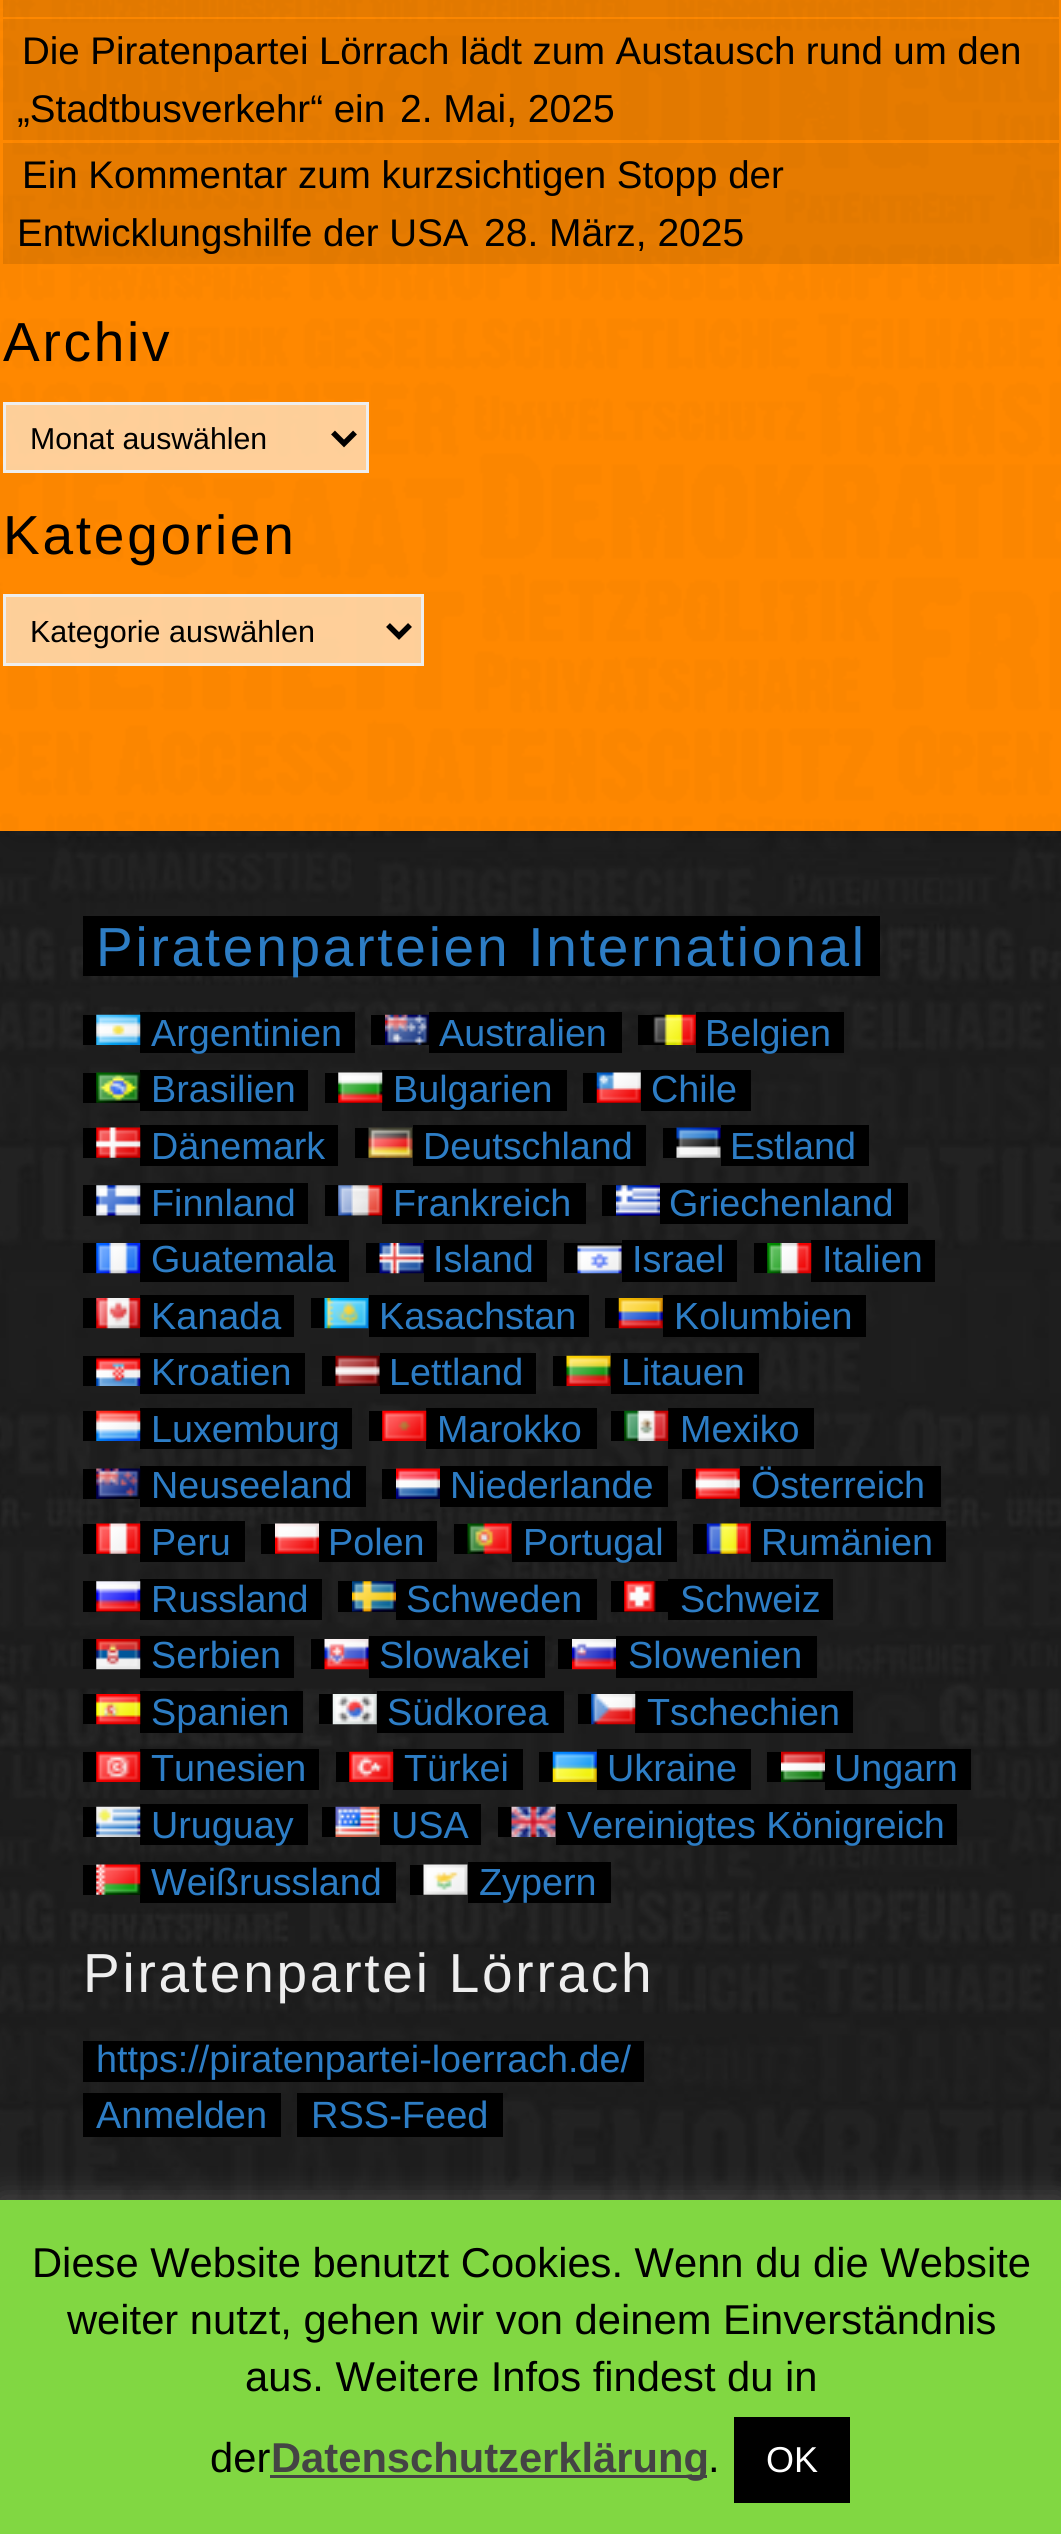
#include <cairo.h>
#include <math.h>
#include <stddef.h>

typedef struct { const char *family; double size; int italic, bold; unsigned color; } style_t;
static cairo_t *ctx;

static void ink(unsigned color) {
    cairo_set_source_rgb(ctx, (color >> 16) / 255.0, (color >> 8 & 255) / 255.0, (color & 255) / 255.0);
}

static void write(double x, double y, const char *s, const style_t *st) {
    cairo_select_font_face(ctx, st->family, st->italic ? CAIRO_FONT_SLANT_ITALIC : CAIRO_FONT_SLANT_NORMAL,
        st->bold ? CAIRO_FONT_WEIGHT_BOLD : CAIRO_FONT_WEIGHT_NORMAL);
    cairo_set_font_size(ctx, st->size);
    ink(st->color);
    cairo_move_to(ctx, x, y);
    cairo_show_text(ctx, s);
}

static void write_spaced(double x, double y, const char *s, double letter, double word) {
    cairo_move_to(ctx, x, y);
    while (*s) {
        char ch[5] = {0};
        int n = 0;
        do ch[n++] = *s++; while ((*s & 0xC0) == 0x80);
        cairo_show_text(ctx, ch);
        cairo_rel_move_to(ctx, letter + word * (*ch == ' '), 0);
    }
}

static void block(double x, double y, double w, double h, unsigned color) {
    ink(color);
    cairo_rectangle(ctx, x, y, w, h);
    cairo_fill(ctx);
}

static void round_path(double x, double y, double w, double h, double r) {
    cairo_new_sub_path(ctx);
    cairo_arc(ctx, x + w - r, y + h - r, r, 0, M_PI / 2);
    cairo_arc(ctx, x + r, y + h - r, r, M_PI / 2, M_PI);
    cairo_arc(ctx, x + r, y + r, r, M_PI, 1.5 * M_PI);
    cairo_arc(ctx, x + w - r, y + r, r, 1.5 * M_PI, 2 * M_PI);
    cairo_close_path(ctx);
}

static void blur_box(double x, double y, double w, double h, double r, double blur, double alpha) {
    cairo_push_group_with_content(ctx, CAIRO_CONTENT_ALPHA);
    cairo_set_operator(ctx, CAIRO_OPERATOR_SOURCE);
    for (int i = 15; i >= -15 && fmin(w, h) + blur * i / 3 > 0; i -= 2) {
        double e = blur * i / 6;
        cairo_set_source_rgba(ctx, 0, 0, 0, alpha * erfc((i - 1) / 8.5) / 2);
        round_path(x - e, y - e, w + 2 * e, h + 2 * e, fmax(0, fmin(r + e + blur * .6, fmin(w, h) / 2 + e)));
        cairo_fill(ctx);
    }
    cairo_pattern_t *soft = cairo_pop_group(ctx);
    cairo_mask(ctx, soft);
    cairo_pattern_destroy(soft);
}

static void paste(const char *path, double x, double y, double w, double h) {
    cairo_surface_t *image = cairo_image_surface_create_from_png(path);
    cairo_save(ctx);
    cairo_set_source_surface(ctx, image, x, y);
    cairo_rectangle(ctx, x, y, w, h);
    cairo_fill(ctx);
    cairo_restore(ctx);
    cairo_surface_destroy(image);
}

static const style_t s1 = {"Liberation Sans", 38.5, 0, 0, 0x000000};
static const style_t s2 = {"Liberation Sans", 39, 0, 0, 0x000000};
static const style_t s3 = {"Liberation Sans", 30.25, 0, 0, 0x000000};
static const style_t s4 = {"Liberation Sans", 30.5, 0, 0, 0x000000};
static const style_t s5 = {"Liberation Sans", 37.75, 0, 0, 0x2d7dc5};
static const style_t s6 = {"Liberation Sans", 38, 0, 0, 0x2d7dc5};
static const style_t s7 = {"Liberation Sans", 41.7, 0, 0, 0x000000};
static const style_t s8 = {"Liberation Sans", 41.7, 0, 1, 0x444444};
static const style_t s9 = {"Liberation Sans", 36, 0, 0, 0xffffff};

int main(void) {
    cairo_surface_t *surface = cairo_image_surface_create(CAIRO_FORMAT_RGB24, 1061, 2534);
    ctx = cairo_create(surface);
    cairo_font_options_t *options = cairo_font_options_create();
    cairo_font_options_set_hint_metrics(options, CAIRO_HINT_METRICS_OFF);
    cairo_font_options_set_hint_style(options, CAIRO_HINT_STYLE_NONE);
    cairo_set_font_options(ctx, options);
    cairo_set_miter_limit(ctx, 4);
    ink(0xffffff);
    cairo_paint(ctx);
    paste("pic2.png", 0, 831, 1061, 1369);
    cairo_set_source_rgba(ctx, 0, 0, 0, 0.2);
    cairo_rectangle(ctx, 0, 831, 1061, 1369);
    cairo_fill(ctx);
    ink(0x000000);
    blur_box(14, -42, 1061, 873, 0, 14, 0.3);
    block(0, 830, 1061, 1, 0xff8800);
    paste("pic1.png", 0, 0, 1061, 830);
    cairo_set_source_rgba(ctx, 0, 0, 0, 0.1);
    cairo_rectangle(ctx, 3, 0, 1056, 17);
    cairo_fill(ctx);
    cairo_rectangle(ctx, 3, 19, 1056, 121);
    cairo_fill(ctx);
    cairo_select_font_face(ctx, "Liberation Sans", CAIRO_FONT_SLANT_NORMAL, CAIRO_FONT_WEIGHT_NORMAL);
    cairo_set_font_size(ctx, 38.5);
    ink(0x000000);
    write_spaced(22, 64, "Die Piratenpartei Lörrach lädt zum Austausch rund um den", 0, -0.25);
    write(17, 122, "„Stadtbusverkehr“ ein", &s1);
    write(400, 122, "2. Mai, 2025", &s2);
    cairo_set_source_rgba(ctx, 0, 0, 0, 0.1);
    cairo_rectangle(ctx, 3, 143, 1056, 121);
    cairo_fill(ctx);
    write(22, 188, "Ein Kommentar zum kurzsichtigen Stopp der", &s1);
    write(17, 246, "Entwicklungshilfe der USA", &s1);
    write(484, 246, "28. März, 2025", &s2);
    cairo_set_font_size(ctx, 55);
    write_spaced(3, 361, "Archiv", 2.75, 0);
    cairo_set_source_rgba(ctx, 1, 1, 1, 0.6);
    cairo_rectangle(ctx, 4.5, 403.5, 363, 68);
    cairo_fill_preserve(ctx);
    ink(0xeeeeee);
    cairo_set_line_width(ctx, 3);
    cairo_stroke(ctx);
    cairo_new_path(ctx);
    cairo_move_to(ctx, 333, 432.5);
    cairo_line_to(ctx, 344, 443.5);
    cairo_line_to(ctx, 355, 432.5);
    ink(0x000000);
    cairo_set_line_width(ctx, 5.5);
    cairo_stroke(ctx);
    write(30, 449, "Monat auswählen", &s3);
    cairo_set_font_size(ctx, 55);
    write_spaced(3, 554, "Kategorien", 2.75, 0);
    cairo_set_source_rgba(ctx, 1, 1, 1, 0.6);
    cairo_rectangle(ctx, 4.5, 595.5, 418, 69);
    cairo_fill_preserve(ctx);
    ink(0xeeeeee);
    cairo_set_line_width(ctx, 3);
    cairo_stroke(ctx);
    cairo_new_path(ctx);
    cairo_move_to(ctx, 388, 625);
    cairo_line_to(ctx, 399, 636);
    cairo_line_to(ctx, 410, 625);
    ink(0x000000);
    cairo_set_line_width(ctx, 5.5);
    cairo_stroke(ctx);
    write(30, 642, "Kategorie auswählen", &s4);
    block(83, 916, 797, 60, 0x000000);
    cairo_set_font_size(ctx, 55);
    ink(0x2d7dc5);
    write_spaced(96, 966, "Piratenparteien International", 2.75, 0);
    block(83, 1015, 14, 30, 0x000000);
    block(140, 1012, 215, 41, 0x000000);
    paste("pic3.png", 96, 1014, 45, 31);
    write(151, 1046, "Argentinien", &s5);
    block(371, 1015, 14, 30, 0x000000);
    block(429, 1012, 193, 41, 0x000000);
    paste("pic4.png", 385, 1014, 44, 31);
    write(439, 1046, "Australien", &s5);
    block(638, 1015, 58, 30, 0x000000);
    block(696, 1012, 148, 41, 0x000000);
    paste("pic5.png", 652, 1014, 44, 31);
    write(705, 1046, "Belgien", &s5);
    block(83, 1073, 57, 30, 0x000000);
    block(140, 1070, 168, 41, 0x000000);
    paste("pic6.png", 96, 1072, 45, 31);
    write(151, 1102, "Brasilien", &s5);
    block(325, 1073, 57, 30, 0x000000);
    block(382, 1070, 185, 41, 0x000000);
    paste("pic7.png", 338, 1072, 45, 31);
    write(393, 1102, "Bulgarien", &s5);
    block(583, 1073, 58, 30, 0x000000);
    block(641, 1070, 110, 41, 0x000000);
    paste("pic8.png", 596, 1072, 45, 31);
    write(651, 1102, "Chile", &s5);
    block(83, 1128, 57, 30, 0x000000);
    block(140, 1125, 198, 41, 0x000000);
    paste("pic9.png", 96, 1127, 45, 31);
    write(151, 1159, "Dänemark", &s5);
    block(355, 1128, 58, 30, 0x000000);
    block(413, 1125, 233, 41, 0x000000);
    paste("pic10.png", 368, 1127, 45, 31);
    write(423, 1159, "Deutschland", &s5);
    block(663, 1128, 58, 30, 0x000000);
    block(721, 1125, 148, 41, 0x000000);
    paste("pic11.png", 676, 1127, 45, 31);
    write(730, 1159, "Estland", &s5);
    block(83, 1185, 57, 31, 0x000000);
    block(140, 1183, 168, 41, 0x000000);
    paste("pic12.png", 96, 1185, 45, 31);
    write(151, 1216, "Finnland", &s5);
    block(325, 1185, 57, 31, 0x000000);
    block(382, 1183, 204, 41, 0x000000);
    paste("pic13.png", 338, 1185, 45, 31);
    write(393, 1216, "Frankreich", &s5);
    block(602, 1185, 58, 31, 0x000000);
    block(660, 1183, 248, 41, 0x000000);
    paste("pic14.png", 616, 1185, 44, 31);
    write(669, 1216, "Griechenland", &s5);
    block(83, 1243, 14, 30, 0x000000);
    block(140, 1240, 209, 42, 0x000000);
    paste("pic15.png", 96, 1243, 45, 31);
    write(151, 1272, "Guatemala", &s5);
    block(366, 1243, 58, 30, 0x000000);
    block(424, 1240, 123, 42, 0x000000);
    paste("pic16.png", 379, 1243, 45, 31);
    write(433, 1272, "Island", &s5);
    block(564, 1243, 58, 30, 0x000000);
    block(622, 1240, 115, 42, 0x000000);
    paste("pic17.png", 577, 1245, 45, 29);
    write(632, 1272, "Israel", &s5);
    block(754, 1243, 14, 30, 0x000000);
    block(811, 1240, 124, 42, 0x000000);
    paste("pic18.png", 767, 1243, 45, 31);
    write(822, 1272, "Italien", &s5);
    block(83, 1298, 14, 30, 0x000000);
    block(140, 1295, 154, 42, 0x000000);
    paste("pic19.png", 96, 1298, 45, 31);
    write(151, 1329, "Kanada", &s5);
    block(311, 1298, 58, 30, 0x000000);
    block(369, 1295, 220, 42, 0x000000);
    paste("pic20.png", 324, 1298, 45, 31);
    write(379, 1329, "Kasachstan", &s5);
    block(605, 1298, 58, 30, 0x000000);
    block(663, 1295, 203, 42, 0x000000);
    paste("pic21.png", 618, 1298, 45, 31);
    write(674, 1329, "Kolumbien", &s5);
    block(83, 1356, 57, 30, 0x000000);
    block(140, 1353, 165, 41, 0x000000);
    paste("pic22.png", 96, 1357, 45, 29);
    write(151, 1385, "Kroatien", &s5);
    block(322, 1356, 58, 30, 0x000000);
    block(380, 1353, 156, 41, 0x000000);
    paste("pic23.png", 335, 1355, 45, 31);
    write(389, 1385, "Lettland", &s5);
    block(553, 1356, 58, 30, 0x000000);
    block(611, 1353, 148, 41, 0x000000);
    paste("pic24.png", 566, 1355, 45, 31);
    write(621, 1385, "Litauen", &s5);
    block(83, 1411, 14, 30, 0x000000);
    block(140, 1408, 212, 41, 0x000000);
    paste("pic25.png", 96, 1410, 45, 31);
    write(151, 1442, "Luxemburg", &s5);
    block(369, 1411, 14, 30, 0x000000);
    block(426, 1408, 171, 41, 0x000000);
    paste("pic26.png", 382, 1410, 45, 31);
    write(437, 1442, "Marokko", &s5);
    block(611, 1411, 14, 30, 0x000000);
    block(668, 1408, 146, 41, 0x000000);
    paste("pic27.png", 624, 1410, 45, 31);
    write(680, 1442, "Mexiko", &s5);
    block(83, 1469, 57, 30, 0x000000);
    block(140, 1466, 226, 41, 0x000000);
    paste("pic28.png", 96, 1468, 45, 31);
    write(151, 1498, "Neuseeland", &s5);
    block(382, 1469, 58, 30, 0x000000);
    block(440, 1466, 228, 41, 0x000000);
    paste("pic29.png", 396, 1468, 44, 31);
    write(450, 1498, "Niederlande", &s5);
    block(682, 1469, 58, 30, 0x000000);
    block(740, 1466, 201, 41, 0x000000);
    paste("pic30.png", 695, 1468, 45, 31);
    write(751, 1498, "Österreich", &s5);
    block(83, 1524, 57, 30, 0x000000);
    block(140, 1521, 105, 41, 0x000000);
    paste("pic31.png", 96, 1523, 45, 31);
    write(151, 1555, "Peru", &s5);
    block(261, 1524, 58, 30, 0x000000);
    block(319, 1521, 118, 41, 0x000000);
    paste("pic32.png", 275, 1523, 44, 31);
    write(328, 1555, "Polen", &s5);
    block(454, 1524, 58, 30, 0x000000);
    block(512, 1521, 165, 41, 0x000000);
    paste("pic33.png", 467, 1523, 45, 31);
    write(523, 1555, "Portugal", &s5);
    block(693, 1524, 58, 30, 0x000000);
    block(751, 1521, 195, 41, 0x000000);
    paste("pic34.png", 706, 1523, 45, 31);
    write(761, 1555, "Rumänien", &s5);
    block(83, 1581, 57, 31, 0x000000);
    block(140, 1579, 182, 41, 0x000000);
    paste("pic35.png", 96, 1581, 45, 31);
    write(151, 1612, "Russland", &s5);
    block(338, 1581, 58, 31, 0x000000);
    block(396, 1579, 201, 41, 0x000000);
    paste("pic36.png", 352, 1581, 44, 31);
    write(406, 1612, "Schweden", &s5);
    block(611, 1581, 57, 31, 0x000000);
    block(668, 1579, 165, 41, 0x000000);
    paste("pic37.png", 624, 1581, 32, 31);
    write(680, 1612, "Schweiz", &s5);
    block(83, 1639, 14, 30, 0x000000);
    block(140, 1636, 154, 42, 0x000000);
    paste("pic38.png", 96, 1639, 45, 31);
    write(151, 1668, "Serbien", &s5);
    block(311, 1639, 58, 30, 0x000000);
    block(369, 1636, 176, 42, 0x000000);
    paste("pic39.png", 324, 1639, 45, 31);
    write(379, 1668, "Slowakei", &s5);
    block(558, 1639, 14, 30, 0x000000);
    block(616, 1636, 201, 42, 0x000000);
    paste("pic40.png", 572, 1639, 44, 31);
    write(628, 1668, "Slowenien", &s5);
    block(83, 1694, 14, 30, 0x000000);
    block(140, 1691, 163, 42, 0x000000);
    paste("pic41.png", 96, 1694, 45, 31);
    write(151, 1725, "Spanien", &s5);
    block(319, 1694, 58, 30, 0x000000);
    block(377, 1691, 187, 42, 0x000000);
    paste("pic42.png", 332, 1694, 45, 31);
    write(387, 1725, "Südkorea", &s5);
    block(578, 1694, 14, 30, 0x000000);
    block(635, 1691, 218, 42, 0x000000);
    paste("pic43.png", 591, 1694, 45, 31);
    write(647, 1725, "Tschechien", &s5);
    block(83, 1752, 14, 30, 0x000000);
    block(140, 1749, 179, 41, 0x000000);
    paste("pic44.png", 96, 1751, 45, 31);
    write(151, 1781, "Tunesien", &s5);
    block(336, 1752, 14, 30, 0x000000);
    block(393, 1749, 130, 41, 0x000000);
    paste("pic45.png", 349, 1751, 45, 31);
    write(404, 1781, "Türkei", &s5);
    block(539, 1752, 58, 30, 0x000000);
    block(597, 1749, 154, 41, 0x000000);
    paste("pic46.png", 552, 1751, 45, 31);
    write(607, 1781, "Ukraine", &s5);
    block(767, 1752, 14, 30, 0x000000);
    block(825, 1749, 146, 41, 0x000000);
    paste("pic47.png", 781, 1751, 44, 31);
    write(834, 1781, "Ungarn", &s5);
    block(83, 1807, 14, 30, 0x000000);
    block(140, 1804, 168, 41, 0x000000);
    paste("pic48.png", 96, 1806, 45, 31);
    write(151, 1838, "Uruguay", &s5);
    block(322, 1807, 58, 30, 0x000000);
    block(380, 1804, 101, 41, 0x000000);
    paste("pic49.png", 335, 1806, 45, 31);
    write(391, 1838, "USA", &s5);
    block(498, 1807, 58, 30, 0x000000);
    block(556, 1804, 401, 41, 0x000000);
    paste("pic50.png", 511, 1806, 45, 31);
    write(567, 1838, "Vereinigtes Königreich", &s5);
    block(83, 1865, 57, 30, 0x000000);
    block(140, 1862, 256, 41, 0x000000);
    paste("pic51.png", 96, 1864, 45, 31);
    write(151, 1895, "Weißrussland", &s5);
    block(410, 1865, 58, 30, 0x000000);
    block(468, 1862, 143, 41, 0x000000);
    paste("pic52.png", 423, 1864, 45, 31);
    write(479, 1895, "Zypern", &s5);
    cairo_set_font_size(ctx, 55);
    ink(0xeeeeee);
    write_spaced(83, 1992, "Piratenpartei Lörrach", 2.75, 0);
    block(83, 2041, 561, 41, 0x000000);
    write(96, 2072, "https://piratenpartei-loerrach.de/", &s5);
    block(83, 2093, 198, 44, 0x000000);
    write(96, 2128, "Anmelden", &s6);
    block(297, 2093, 206, 44, 0x000000);
    write(311, 2128, "RSS-Feed", &s6);
    ink(0xacabab);
    blur_box(0, 2197, 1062, 336, 0, 14, 0.3);
    block(0, 2200, 1061, 334, 0x81d742);
    write(32, 2277, "Diese Website benutzt Cookies. Wenn du die Website", &s7);
    write(67, 2334, "weiter nutzt, gehen wir von deinem Einverständnis", &s7);
    write(245, 2391, "aus. Weitere Infos findest du in", &s7);
    write(210, 2472, "der", &s7);
    block(270, 2475, 437, 3, 0x444444);
    write(271, 2472, "Datenschutzerklärung", &s8);
    write(708, 2472, ".", &s7);
    block(734, 2417, 116, 86, 0x000000);
    write(766, 2472, "OK", &s9);
    cairo_surface_write_to_png(surface, "screenshot.png");
    cairo_font_options_destroy(options);
    cairo_destroy(ctx);
    cairo_surface_destroy(surface);
    return 0;
}
